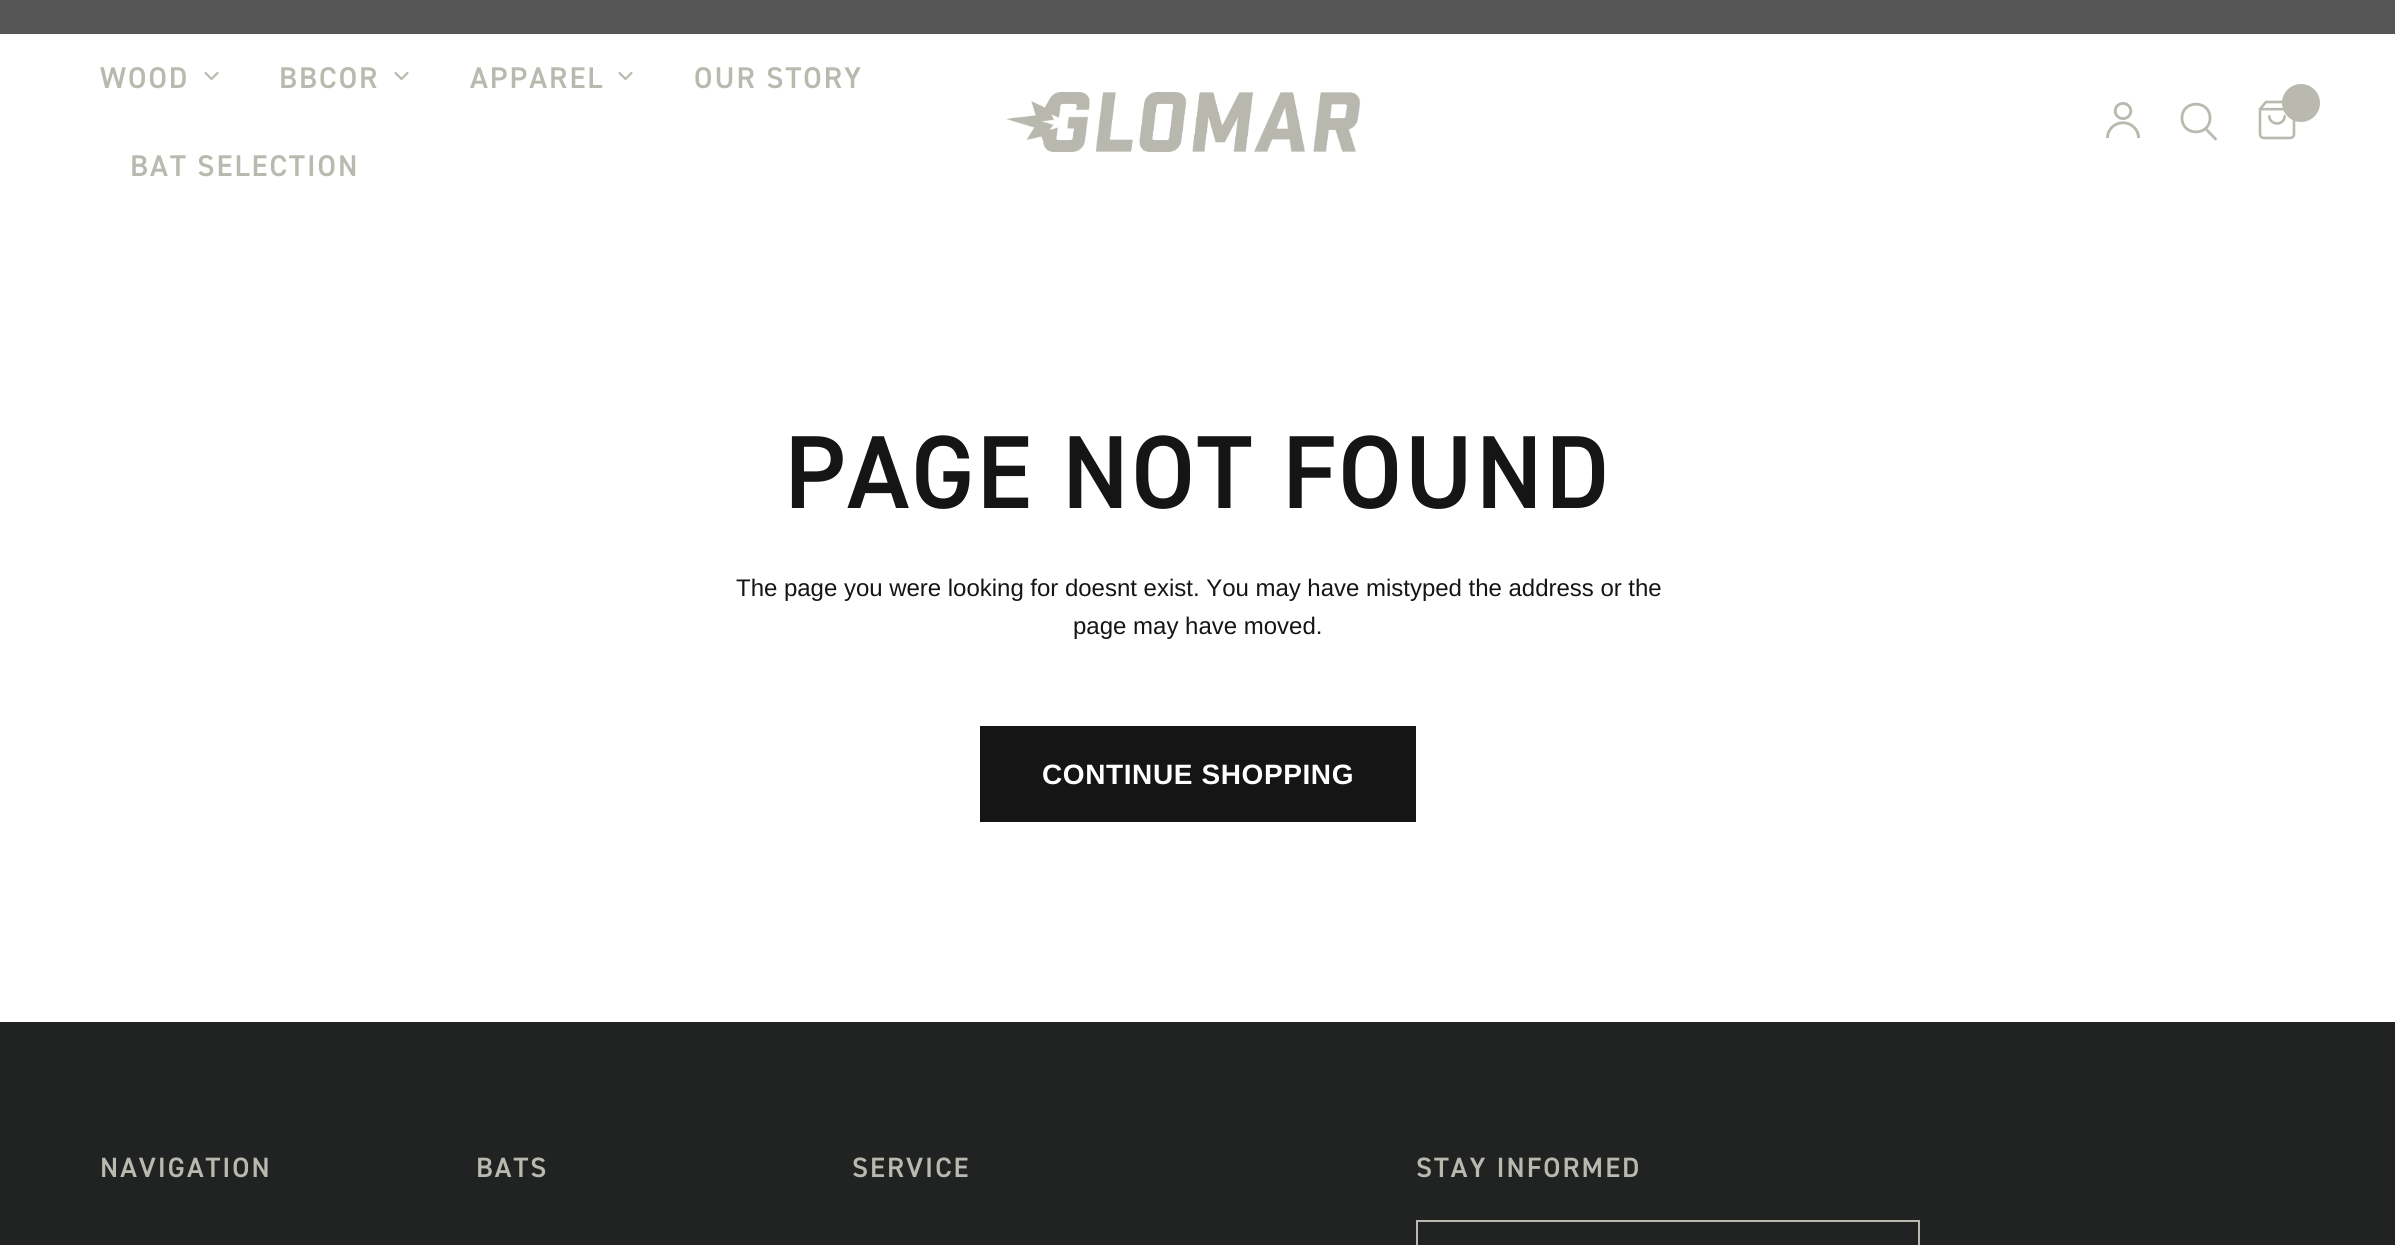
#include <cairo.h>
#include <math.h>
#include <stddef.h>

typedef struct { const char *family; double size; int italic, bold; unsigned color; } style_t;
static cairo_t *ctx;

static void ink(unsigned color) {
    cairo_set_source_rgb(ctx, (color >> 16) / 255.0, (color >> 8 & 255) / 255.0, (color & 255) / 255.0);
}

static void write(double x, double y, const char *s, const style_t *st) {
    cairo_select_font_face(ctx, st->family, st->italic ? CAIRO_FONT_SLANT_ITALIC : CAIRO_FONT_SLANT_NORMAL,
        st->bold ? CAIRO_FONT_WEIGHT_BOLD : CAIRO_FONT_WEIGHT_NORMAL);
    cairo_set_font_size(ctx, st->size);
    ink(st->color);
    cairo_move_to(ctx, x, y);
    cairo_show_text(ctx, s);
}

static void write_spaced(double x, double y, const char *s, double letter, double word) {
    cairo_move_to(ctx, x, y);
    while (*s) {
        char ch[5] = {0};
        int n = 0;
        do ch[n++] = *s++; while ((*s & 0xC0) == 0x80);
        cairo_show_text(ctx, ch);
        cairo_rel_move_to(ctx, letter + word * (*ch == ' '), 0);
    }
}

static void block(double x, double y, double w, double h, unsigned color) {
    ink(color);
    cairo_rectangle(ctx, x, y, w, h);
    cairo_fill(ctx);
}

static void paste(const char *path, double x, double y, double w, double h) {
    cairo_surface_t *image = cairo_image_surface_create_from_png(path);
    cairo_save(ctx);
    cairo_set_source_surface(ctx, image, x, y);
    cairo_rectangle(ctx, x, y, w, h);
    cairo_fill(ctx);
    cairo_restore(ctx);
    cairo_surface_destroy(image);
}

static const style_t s1 = {"Liberation Sans", 24, 0, 0, 0x151515};

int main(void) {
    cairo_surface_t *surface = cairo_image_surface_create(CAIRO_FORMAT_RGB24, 2395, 1245);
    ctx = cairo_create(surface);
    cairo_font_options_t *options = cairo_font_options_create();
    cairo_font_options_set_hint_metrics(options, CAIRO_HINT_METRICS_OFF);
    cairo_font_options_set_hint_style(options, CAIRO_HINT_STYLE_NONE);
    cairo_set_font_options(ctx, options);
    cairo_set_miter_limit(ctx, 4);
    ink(0xffffff);
    cairo_paint(ctx);
    block(0, 0, 2395, 34, 0x565656);
    cairo_select_font_face(ctx, "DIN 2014 SemiBold", CAIRO_FONT_SLANT_NORMAL, CAIRO_FONT_WEIGHT_NORMAL);
    cairo_set_font_size(ctx, 30);
    ink(0xbab9af);
    write_spaced(100, 88, "WOOD", 2, 0);
    cairo_new_path(ctx);
    cairo_move_to(ctx, 217.5, 73);
    cairo_line_to(ctx, 211.5, 79);
    cairo_line_to(ctx, 205.5, 73);
    cairo_set_line_width(ctx, 2.2);
    cairo_set_line_cap(ctx, CAIRO_LINE_CAP_ROUND);
    cairo_set_line_join(ctx, CAIRO_LINE_JOIN_ROUND);
    cairo_stroke(ctx);
    write_spaced(279, 88, "BBCOR", 2, 0);
    cairo_new_path(ctx);
    cairo_move_to(ctx, 407.5, 73);
    cairo_line_to(ctx, 401.5, 79);
    cairo_line_to(ctx, 395.5, 73);
    cairo_stroke(ctx);
    write_spaced(470, 88, "APPAREL", 2, 0);
    cairo_new_path(ctx);
    cairo_move_to(ctx, 631.5, 73);
    cairo_line_to(ctx, 625.5, 79);
    cairo_line_to(ctx, 619.5, 73);
    cairo_stroke(ctx);
    write_spaced(694, 88, "OUR STORY", 2, 0);
    write_spaced(130, 176, "BAT SELECTION", 2, 0);
    paste("pic1.png", 1006, 92, 355, 60);
    paste("pic2.png", 2106, 102, 34, 36);
    cairo_new_path(ctx);
    cairo_move_to(ctx, 2206, 129);
    cairo_line_to(ctx, 2215.5, 139);
    cairo_move_to(ctx, 2210, 118);
    cairo_curve_to(ctx, 2210, 136.5, 2182, 136.5, 2182, 118);
    cairo_curve_to(ctx, 2182, 99.5, 2210, 99.5, 2210, 118);
    cairo_close_path(ctx);
    cairo_set_line_width(ctx, 2.8);
    cairo_stroke(ctx);
    paste("pic3.png", 2258, 100, 38, 40);
    cairo_arc(ctx, 2301, 103, 19, 0, 2 * M_PI);
    cairo_fill(ctx);
    cairo_set_font_size(ctx, 104);
    ink(0x151515);
    write_spaced(784, 508, "PAGE NOT FOUND", 2, 0);
    cairo_select_font_face(ctx, "Liberation Sans", CAIRO_FONT_SLANT_NORMAL, CAIRO_FONT_WEIGHT_NORMAL);
    cairo_set_font_size(ctx, 24);
    write_spaced(736, 596, "The page you were looking for doesnt exist. You may have mistyped the address or the", 0, -0.1);
    write(1073, 634, "page may have moved.", &s1);
    block(980, 726, 436, 96, 0x151515);
    cairo_select_font_face(ctx, "Liberation Sans", CAIRO_FONT_SLANT_NORMAL, CAIRO_FONT_WEIGHT_BOLD);
    cairo_set_font_size(ctx, 28);
    ink(0xffffff);
    write_spaced(1042, 784, "CONTINUE SHOPPING", 0.6, 0);
    block(0, 1022, 2395, 223, 0x212322);
    cairo_select_font_face(ctx, "DIN 2014 SemiBold", CAIRO_FONT_SLANT_NORMAL, CAIRO_FONT_WEIGHT_NORMAL);
    ink(0xbab9af);
    write_spaced(100, 1177, "NAVIGATION", 2, 0);
    write_spaced(476, 1177, "BATS", 2, 0);
    write_spaced(852, 1177, "SERVICE", 2, 0);
    write_spaced(1416, 1177, "STAY INFORMED", 2, 0);
    cairo_rectangle(ctx, 1417, 1221, 502, 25);
    cairo_set_line_width(ctx, 2);
    cairo_set_line_cap(ctx, CAIRO_LINE_CAP_BUTT);
    cairo_set_line_join(ctx, CAIRO_LINE_JOIN_MITER);
    cairo_stroke(ctx);
    cairo_surface_write_to_png(surface, "screenshot.png");
    cairo_font_options_destroy(options);
    cairo_destroy(ctx);
    cairo_surface_destroy(surface);
    return 0;
}
